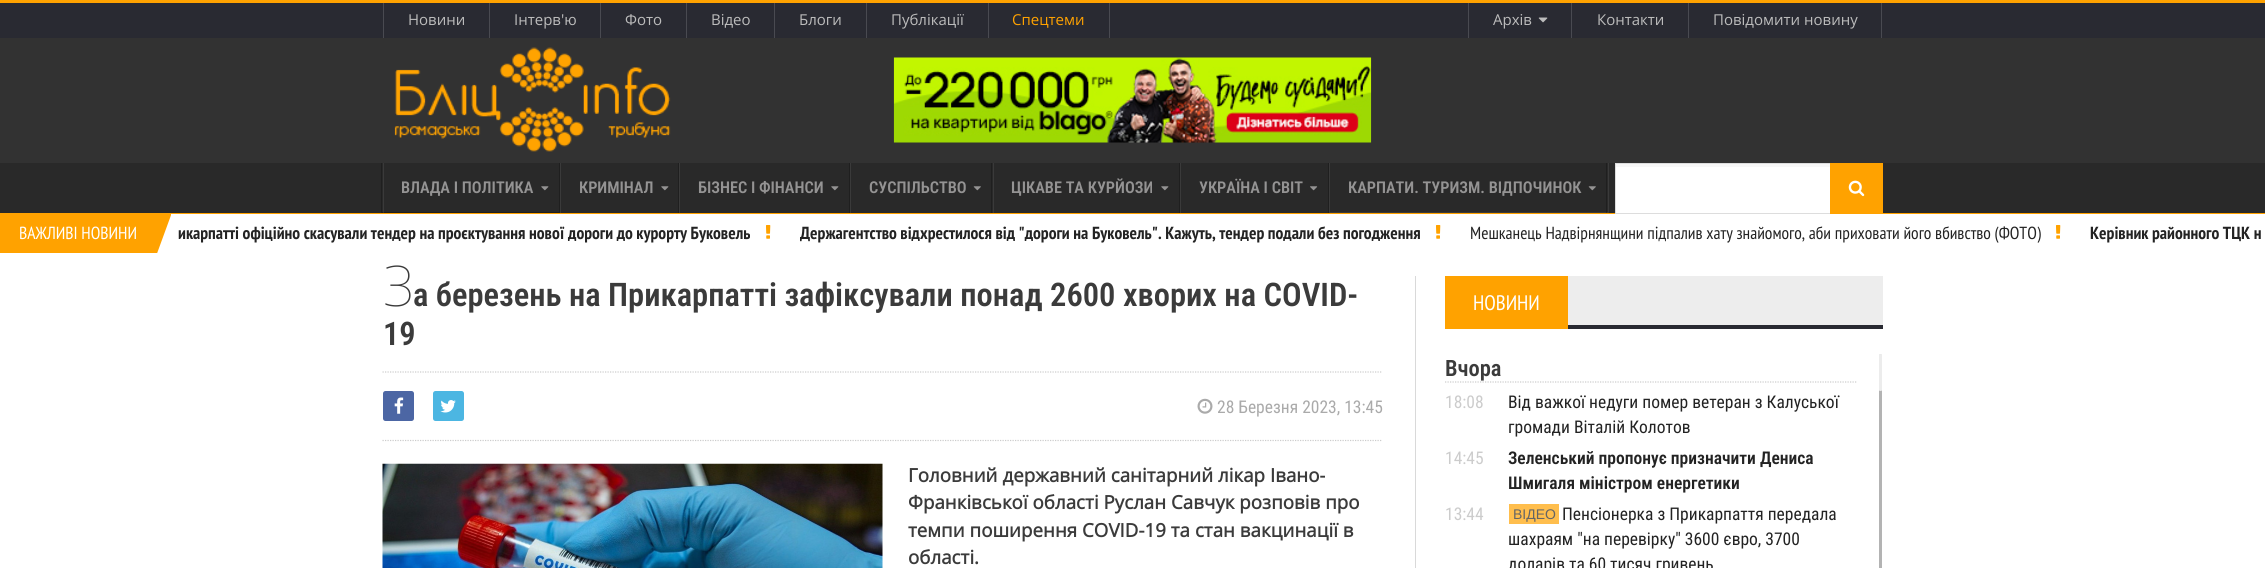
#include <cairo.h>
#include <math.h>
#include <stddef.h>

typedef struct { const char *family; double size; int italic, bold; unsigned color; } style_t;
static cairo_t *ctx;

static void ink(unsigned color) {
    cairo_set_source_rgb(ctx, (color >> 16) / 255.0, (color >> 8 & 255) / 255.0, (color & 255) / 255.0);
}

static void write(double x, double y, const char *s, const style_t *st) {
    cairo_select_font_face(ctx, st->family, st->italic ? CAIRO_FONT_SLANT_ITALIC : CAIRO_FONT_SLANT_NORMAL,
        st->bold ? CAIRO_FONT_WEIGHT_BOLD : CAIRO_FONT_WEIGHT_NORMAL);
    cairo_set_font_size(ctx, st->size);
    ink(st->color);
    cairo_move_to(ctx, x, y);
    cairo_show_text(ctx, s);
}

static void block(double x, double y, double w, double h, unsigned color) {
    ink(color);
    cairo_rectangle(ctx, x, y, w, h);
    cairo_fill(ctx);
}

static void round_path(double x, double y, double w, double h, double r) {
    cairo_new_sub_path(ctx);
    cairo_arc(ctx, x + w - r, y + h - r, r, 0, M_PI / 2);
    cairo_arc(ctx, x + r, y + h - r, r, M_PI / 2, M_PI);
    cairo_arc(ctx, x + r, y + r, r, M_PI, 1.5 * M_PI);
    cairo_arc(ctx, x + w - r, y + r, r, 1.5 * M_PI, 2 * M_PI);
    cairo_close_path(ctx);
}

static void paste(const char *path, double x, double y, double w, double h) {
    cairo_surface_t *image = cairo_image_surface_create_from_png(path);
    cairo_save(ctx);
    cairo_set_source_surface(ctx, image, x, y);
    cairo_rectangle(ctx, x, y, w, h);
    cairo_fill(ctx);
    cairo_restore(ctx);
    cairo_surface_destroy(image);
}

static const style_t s1 = {"Open Sans", 15, 0, 0, 0xbcbcbc};
static const style_t s2 = {"Open Sans", 15, 0, 0, 0xffa200};
static const style_t s3 = {"Roboto Condensed SemiBold", 16.25, 0, 0, 0x949393};
static const style_t s4 = {"PT Sans Narrow", 17.5, 0, 0, 0xffffff};
static const style_t s5 = {"PT Sans Narrow", 17.5, 0, 1, 0x232323};
static const style_t s6 = {"PT Sans Narrow", 17.5, 0, 0, 0x232323};
static const style_t s7 = {"Noto Sans Thin", 56, 0, 0, 0x3b3b3b};
static const style_t s8 = {"Roboto Condensed SemiBold", 32.5, 0, 0, 0x3b3b3b};
static const style_t s9 = {"Roboto Condensed", 17.5, 0, 0, 0xaaaaaa};
static const style_t s10 = {"Open Sans", 18.75, 0, 1, 0x3b3b3b};
static const style_t s11 = {"PT Sans Narrow", 21, 0, 0, 0xffffff};
static const style_t s12 = {"Roboto Condensed SemiBold", 22.5, 0, 0, 0x3b3b3b};
static const style_t s13 = {"Roboto Condensed", 17.5, 0, 0, 0xcccccc};
static const style_t s14 = {"Roboto Condensed", 17.5, 0, 0, 0x232323};
static const style_t s15 = {"Roboto Condensed SemiBold", 17.5, 0, 0, 0x232323};
static const style_t s16 = {"Liberation Sans", 14, 0, 0, 0x656565};

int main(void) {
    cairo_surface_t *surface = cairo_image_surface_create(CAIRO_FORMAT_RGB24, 2265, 568);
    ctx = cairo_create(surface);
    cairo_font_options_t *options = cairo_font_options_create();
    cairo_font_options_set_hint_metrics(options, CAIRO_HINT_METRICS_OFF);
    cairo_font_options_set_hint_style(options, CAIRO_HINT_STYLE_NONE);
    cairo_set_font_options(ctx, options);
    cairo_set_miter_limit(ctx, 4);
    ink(0xffffff);
    cairo_paint(ctx);
    block(0, 38, 2265, 125, 0x323232);
    block(0, 3, 2265, 35, 0x292a32);
    block(0, 0, 2265, 3, 0xffa200);
    block(383, 3, 1, 35, 0x494a51);
    block(489, 3, 1, 35, 0x494a51);
    write(408, 25, "Новини", &s1);
    block(600, 3, 1, 35, 0x494a51);
    write(514, 25, "Інтерв'ю", &s1);
    block(686, 3, 1, 35, 0x494a51);
    write(625, 25, "Фото", &s1);
    block(774, 3, 1, 35, 0x494a51);
    write(711, 25, "Відео", &s1);
    block(866, 3, 1, 35, 0x494a51);
    write(799, 25, "Блоги", &s1);
    block(988, 3, 1, 35, 0x494a51);
    write(891, 25, "Публікації", &s1);
    block(1109, 3, 1, 35, 0x494a51);
    write(1012, 25, "Спецтеми", &s2);
    block(1468, 3, 1, 35, 0x494a51);
    block(1571, 3, 1, 35, 0x494a51);
    write(1493, 25, "Архів", &s1);
    paste("pic1.png", 1538, 17, 10, 6);
    block(1688, 3, 1, 35, 0x494a51);
    write(1597, 25, "Контакти", &s1);
    block(1881, 3, 1, 35, 0x494a51);
    write(1713, 25, "Повідомити новину", &s1);
    paste("pic2.png", 394, 47, 277, 105);
    paste("pic3.png", 893, 57, 479, 86);
    block(0, 163, 2265, 50, 0x292929);
    cairo_save(ctx);
    cairo_rectangle(ctx, 0, 213, 171, 40);
    cairo_clip(ctx);
    ink(0xffa200);
    cairo_new_path(ctx);
    cairo_move_to(ctx, 133, 192);
    cairo_line_to(ctx, 174, 207);
    cairo_line_to(ctx, 155, 259);
    cairo_line_to(ctx, 113, 244);
    cairo_close_path(ctx);
    cairo_fill(ctx);
    cairo_restore(ctx);
    block(0, 213, 2265, 1, 0xffa200);
    ink(0x1f1f1f);
    cairo_new_path(ctx);
    cairo_move_to(ctx, 381, 163);
    cairo_line_to(ctx, 381, 213);
    cairo_line_to(ctx, 559, 213);
    cairo_line_to(ctx, 559, 212);
    cairo_line_to(ctx, 382, 212);
    cairo_line_to(ctx, 382, 163);
    cairo_close_path(ctx);
    cairo_fill(ctx);
    block(559, 163, 1, 50, 0x1f1f1f);
    cairo_set_source_rgba(ctx, 1, 1, 1, 0.08);
    cairo_rectangle(ctx, 383, 163, 1, 50);
    cairo_fill(ctx);
    write(401, 193, "ВЛАДА І ПОЛІТИКА", &s3);
    paste("pic4.png", 541, 186, 8, 5);
    block(678, 163, 1, 50, 0x1f1f1f);
    block(560, 163, 1, 50, 0x3a3a3a);
    write(579, 193, "КРИМІНАЛ", &s3);
    paste("pic4.png", 661, 186, 8, 5);
    block(849, 163, 1, 50, 0x1f1f1f);
    block(679, 163, 1, 50, 0x3a3a3a);
    write(698, 193, "БІЗНЕС І ФІНАНСИ", &s3);
    paste("pic4.png", 831, 186, 8, 5);
    block(991, 163, 1, 50, 0x1f1f1f);
    block(850, 163, 1, 50, 0x3a3a3a);
    write(869, 193, "СУСПІЛЬСТВО", &s3);
    paste("pic5.png", 973, 186, 8, 5);
    block(1179, 163, 1, 50, 0x1f1f1f);
    block(993, 163, 1, 50, 0x3a3a3a);
    write(1011, 193, "ЦІКАВЕ ТА КУРЙОЗИ", &s3);
    paste("pic4.png", 1161, 186, 8, 5);
    block(1328, 163, 1, 50, 0x1f1f1f);
    block(1180, 163, 1, 50, 0x3a3a3a);
    write(1199, 193, "УКРАЇНА І СВІТ", &s3);
    paste("pic6.png", 1310, 186, 8, 5);
    ink(0x3a3a3a);
    cairo_new_path(ctx);
    cairo_move_to(ctx, 1330, 212);
    cairo_line_to(ctx, 1330, 213);
    cairo_line_to(ctx, 1609, 213);
    cairo_line_to(ctx, 1609, 163);
    cairo_line_to(ctx, 1608, 163);
    cairo_line_to(ctx, 1608, 212);
    cairo_close_path(ctx);
    cairo_fill(ctx);
    cairo_set_source_rgba(ctx, 0, 0, 0, 0.25);
    cairo_rectangle(ctx, 1606, 163, 1, 50);
    cairo_fill(ctx);
    block(1329, 163, 1, 50, 0x3a3a3a);
    write(1348, 193, "КАРПАТИ. ТУРИЗМ. ВІДПОЧИНОК", &s3);
    paste("pic5.png", 1588, 186, 8, 5);
    block(1616, 167, 214, 46, 0xffffff);
    block(1616, 164, 214, 3, 0xf7f7f7);
    block(1615, 163, 215, 1, 0xdddddd);
    block(1615, 213, 215, 1, 0xdddddd);
    block(1615, 163, 1, 51, 0xdddddd);
    block(1830, 163, 53, 50, 0xffa200);
    paste("pic7.png", 1848, 180, 17, 17);
    block(0, 214, 139, 39, 0xffa200);
    write(19, 239, "ВАЖЛИВІ НОВИНИ", &s4);
    write(178, 239, "икарпатті офіційно скасували тендер на проєктування нової дороги до курорту Буковель", &s5);
    paste("pic8.png", 766, 225, 5, 14);
    write(800, 239, "Держагентство відхрестилося від \"дороги на Буковель\". Кажуть, тендер подали без погодження", &s5);
    paste("pic8.png", 1436, 225, 5, 14);
    write(1470, 239, "Мешканець Надвірнянщини підпалив хату знайомого, аби приховати його вбивство (ФОТО)", &s6);
    paste("pic8.png", 2056, 225, 5, 14);
    write(2090, 239, "Керівник районного ТЦК н", &s5);
    write(383, 306, "З", &s7);
    write(413, 306, "а березень на Прикарпатті зафіксували понад 2600 хворих на COVID-", &s8);
    write(383, 345, "19", &s8);
    cairo_new_path(ctx);
    cairo_move_to(ctx, 382.5, 372);
    cairo_line_to(ctx, 1382.5, 372);
    ink(0xcccccc);
    cairo_set_line_width(ctx, 1.2);
    cairo_set_dash(ctx, (double[]){1.25, 1.25}, 2, 0);
    cairo_stroke(ctx);
    cairo_new_path(ctx);
    cairo_move_to(ctx, 382.5, 440.5);
    cairo_line_to(ctx, 1382.5, 440.5);
    cairo_stroke(ctx);
    ink(0x4c66a4);
    round_path(383, 391, 31, 30, 2.5);
    cairo_fill(ctx);
    paste("pic9.png", 394, 397, 10, 17);
    ink(0x4cb6e2);
    round_path(433, 391, 31, 30, 2.5);
    cairo_fill(ctx);
    paste("pic10.png", 440, 400, 16, 13);
    paste("pic11.png", 1197, 398, 16, 16);
    write(1217, 413, "28 Березня 2023, 13:45", &s9);
    paste("pic12.png", 382, 463, 501, 105);
    write(908, 482, "Головний державний санітарний лікар Івано-", &s10);
    write(908, 509, "Франківської області Руслан Савчук розповів про", &s10);
    write(908, 537, "темпи поширення COVID-19 та стан вакцинації в", &s10);
    write(908, 564, "області.", &s10);
    block(1415, 276, 1, 292, 0xd9d9d9);
    block(1568, 276, 315, 49, 0xededed);
    block(1568, 325, 315, 4, 0x292a32);
    block(1445, 276, 123, 53, 0xffa200);
    write(1473, 310, "НОВИНИ", &s11);
    cairo_new_path(ctx);
    cairo_move_to(ctx, 1445, 382);
    cairo_line_to(ctx, 1857.5, 382);
    ink(0xcccccc);
    cairo_stroke(ctx);
    write(1445, 376, "Вчора", &s12);
    write(1445, 408, "18:08", &s13);
    write(1508, 408, "Від важкої недуги помер ветеран з Калуської", &s14);
    write(1508, 433, "громади Віталій Колотов", &s14);
    write(1445, 464, "14:45", &s13);
    write(1508, 464, "Зеленський пропонує призначити Дениса", &s15);
    write(1508, 489, "Шмигаля міністром енергетики", &s15);
    write(1445, 520, "13:44", &s13);
    block(1509, 504, 50, 20, 0xffbe4d);
    write(1513, 519, "ВІДЕО", &s16);
    write(1562, 520, "Пенсіонерка з Прикарпаття передала", &s14);
    write(1508, 545, "шахраям \"на перевірку\" 3600 євро, 3700", &s14);
    write(1508, 570, "доларів та 60 тисяч гривень", &s14);
    ink(0xb3b3b3);
    round_path(1879, 354, 3, 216, 1.5);
    cairo_fill(ctx);
    cairo_set_source_rgba(ctx, 1, 1, 1, 0.75);
    round_path(1878, 354, 5, 37, 2.5);
    cairo_fill(ctx);
    cairo_surface_write_to_png(surface, "screenshot.png");
    cairo_font_options_destroy(options);
    cairo_destroy(ctx);
    cairo_surface_destroy(surface);
    return 0;
}
